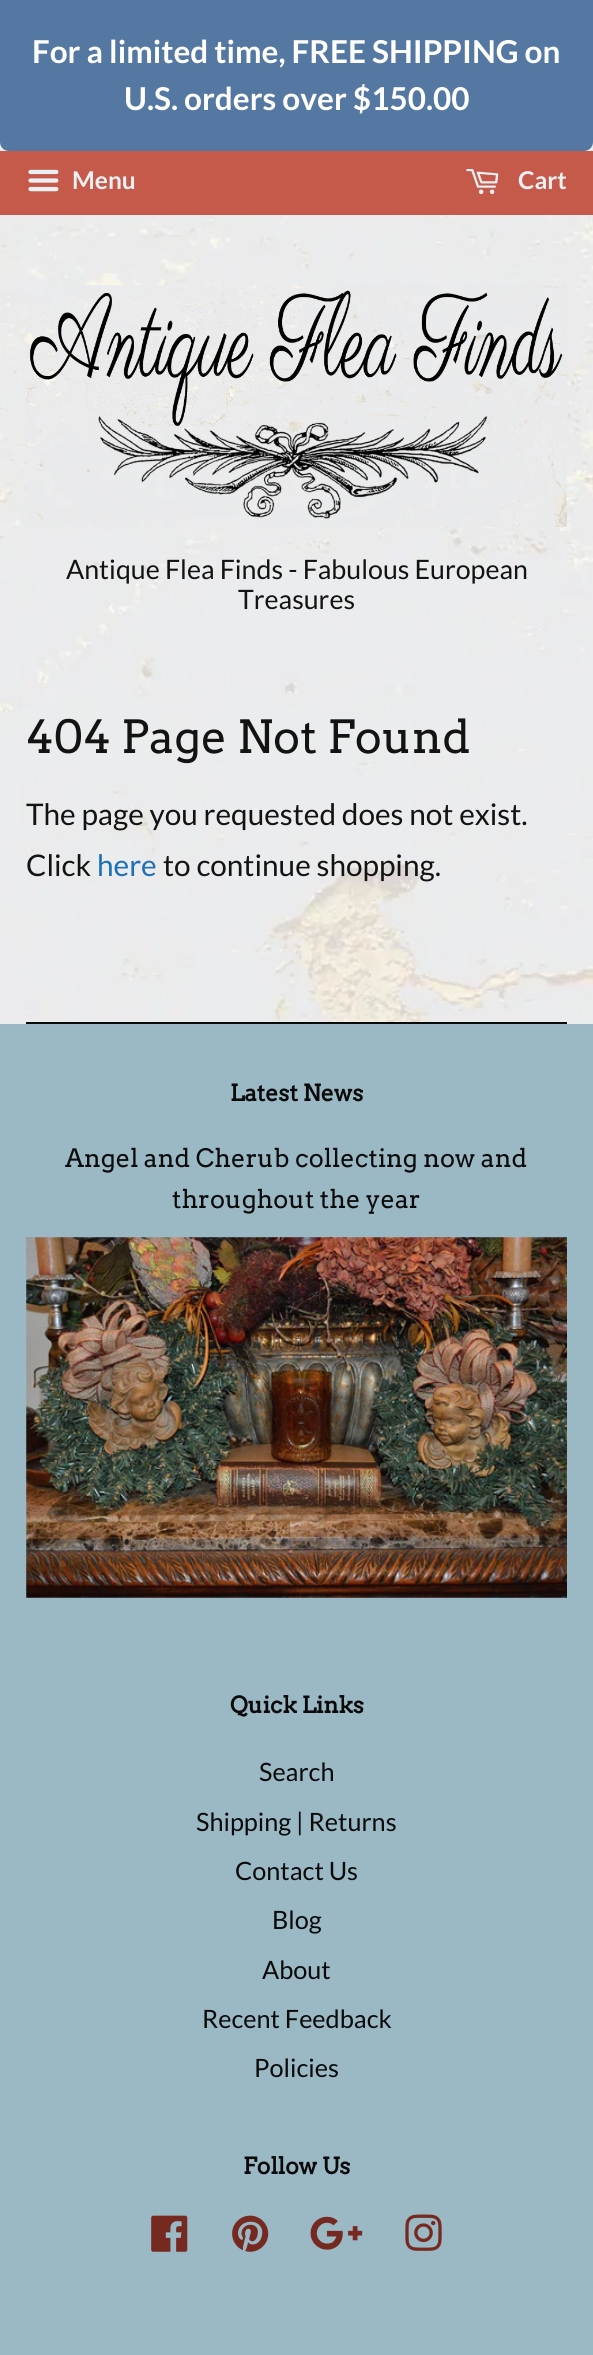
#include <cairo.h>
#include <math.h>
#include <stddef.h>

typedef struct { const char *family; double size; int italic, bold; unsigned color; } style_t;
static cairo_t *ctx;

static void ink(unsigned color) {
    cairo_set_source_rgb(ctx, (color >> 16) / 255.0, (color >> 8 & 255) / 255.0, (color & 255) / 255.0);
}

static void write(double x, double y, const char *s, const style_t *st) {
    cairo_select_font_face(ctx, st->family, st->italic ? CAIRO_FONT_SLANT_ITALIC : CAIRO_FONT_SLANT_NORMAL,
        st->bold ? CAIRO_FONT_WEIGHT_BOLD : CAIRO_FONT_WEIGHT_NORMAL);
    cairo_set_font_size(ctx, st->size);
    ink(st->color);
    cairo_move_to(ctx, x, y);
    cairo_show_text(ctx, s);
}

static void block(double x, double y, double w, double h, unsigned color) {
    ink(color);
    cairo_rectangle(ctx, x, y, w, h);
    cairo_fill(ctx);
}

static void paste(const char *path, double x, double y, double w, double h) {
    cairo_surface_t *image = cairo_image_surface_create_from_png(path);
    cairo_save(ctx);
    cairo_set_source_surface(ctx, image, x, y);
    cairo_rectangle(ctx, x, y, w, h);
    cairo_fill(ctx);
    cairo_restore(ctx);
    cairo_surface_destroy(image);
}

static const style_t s1 = {"Lato", 31.5, 0, 1, 0xffffff};
static const style_t s2 = {"Lato", 24.5, 0, 1, 0xedf0f3};
static const style_t s3 = {"Lato", 26.75, 0, 0, 0x121312};
static const style_t s4 = {"Arvo", 45.5, 0, 0, 0x121312};
static const style_t s5 = {"Lato", 29.75, 0, 0, 0x121312};
static const style_t s6 = {"Lato", 29.75, 0, 0, 0x1b70b7};
static const style_t s7 = {"Arvo", 22.75, 0, 1, 0x0a0a0a};
static const style_t s8 = {"Arvo", 25.25, 0, 0, 0x0a0a0a};
static const style_t s9 = {"Lato", 25.25, 0, 0, 0x0a0a0a};

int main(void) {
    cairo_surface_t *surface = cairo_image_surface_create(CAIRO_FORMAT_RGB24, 593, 2355);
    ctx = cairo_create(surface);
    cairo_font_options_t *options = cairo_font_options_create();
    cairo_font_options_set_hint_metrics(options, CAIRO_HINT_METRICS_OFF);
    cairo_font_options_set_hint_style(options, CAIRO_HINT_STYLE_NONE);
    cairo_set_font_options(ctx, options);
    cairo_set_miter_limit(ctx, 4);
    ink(0xffffff);
    cairo_paint(ctx);
    paste("pic1.png", 0, 142, 593, 882);
    ink(0x5478a2);
    cairo_new_path(ctx);
    cairo_move_to(ctx, 0, 0);
    cairo_line_to(ctx, 593, 0);
    cairo_line_to(ctx, 593, 142);
    cairo_curve_to(ctx, 593, 147, 589, 151, 584, 151);
    cairo_line_to(ctx, 9, 151);
    cairo_curve_to(ctx, 4, 151, 0, 147, 0, 142);
    cairo_close_path(ctx);
    cairo_fill(ctx);
    write(32, 63, "For a limited time, FREE SHIPPING on", &s1);
    write(124, 110, "U.S. orders over $150.00", &s1);
    block(0, 151, 593, 64, 0xc55a4b);
    paste("pic2.png", 28, 169, 31, 23);
    write(72, 189, "Menu", &s2);
    paste("pic3.png", 466, 169, 33, 26);
    write(518, 189, "Cart", &s2);
    paste("pic4.png", 26, 285, 541, 242);
    write(66, 579, "Antique Flea Finds - Fabulous European", &s3);
    write(238, 609, "Treasures", &s3);
    write(26, 753, "404 Page Not Found", &s4);
    write(26, 825, "The page you requested does not exist.", &s5);
    write(26, 876, "Click", &s5);
    write(97, 876, "here", &s6);
    write(163, 876, "to continue shopping.", &s5);
    block(26, 1022, 541, 2, 0x0a0a0a);
    block(0, 1024, 593, 1331, 0x9bb8c5);
    write(230, 1101, "Latest News", &s7);
    write(65, 1167, "Angel and Cherub collecting now and", &s8);
    write(172, 1208, "throughout the year", &s8);
    paste("pic5.png", 26, 1237, 541, 361);
    write(230, 1713, "Quick Links", &s7);
    write(259, 1781, "Search", &s9);
    write(196, 1831, "Shipping | Returns", &s9);
    write(235, 1880, "Contact Us", &s9);
    write(272, 1929, "Blog", &s9);
    write(262, 1979, "About", &s9);
    write(202, 2028, "Recent Feedback", &s9);
    write(254, 2077, "Policies", &s9);
    write(243, 2174, "Follow Us", &s7);
    paste("pic6.png", 151, 2215, 37, 37);
    paste("pic7.png", 232, 2215, 37, 37);
    paste("pic8.png", 310, 2216, 53, 34);
    paste("pic9.png", 405, 2214, 37, 37);
    cairo_surface_write_to_png(surface, "screenshot.png");
    cairo_font_options_destroy(options);
    cairo_destroy(ctx);
    cairo_surface_destroy(surface);
    return 0;
}
